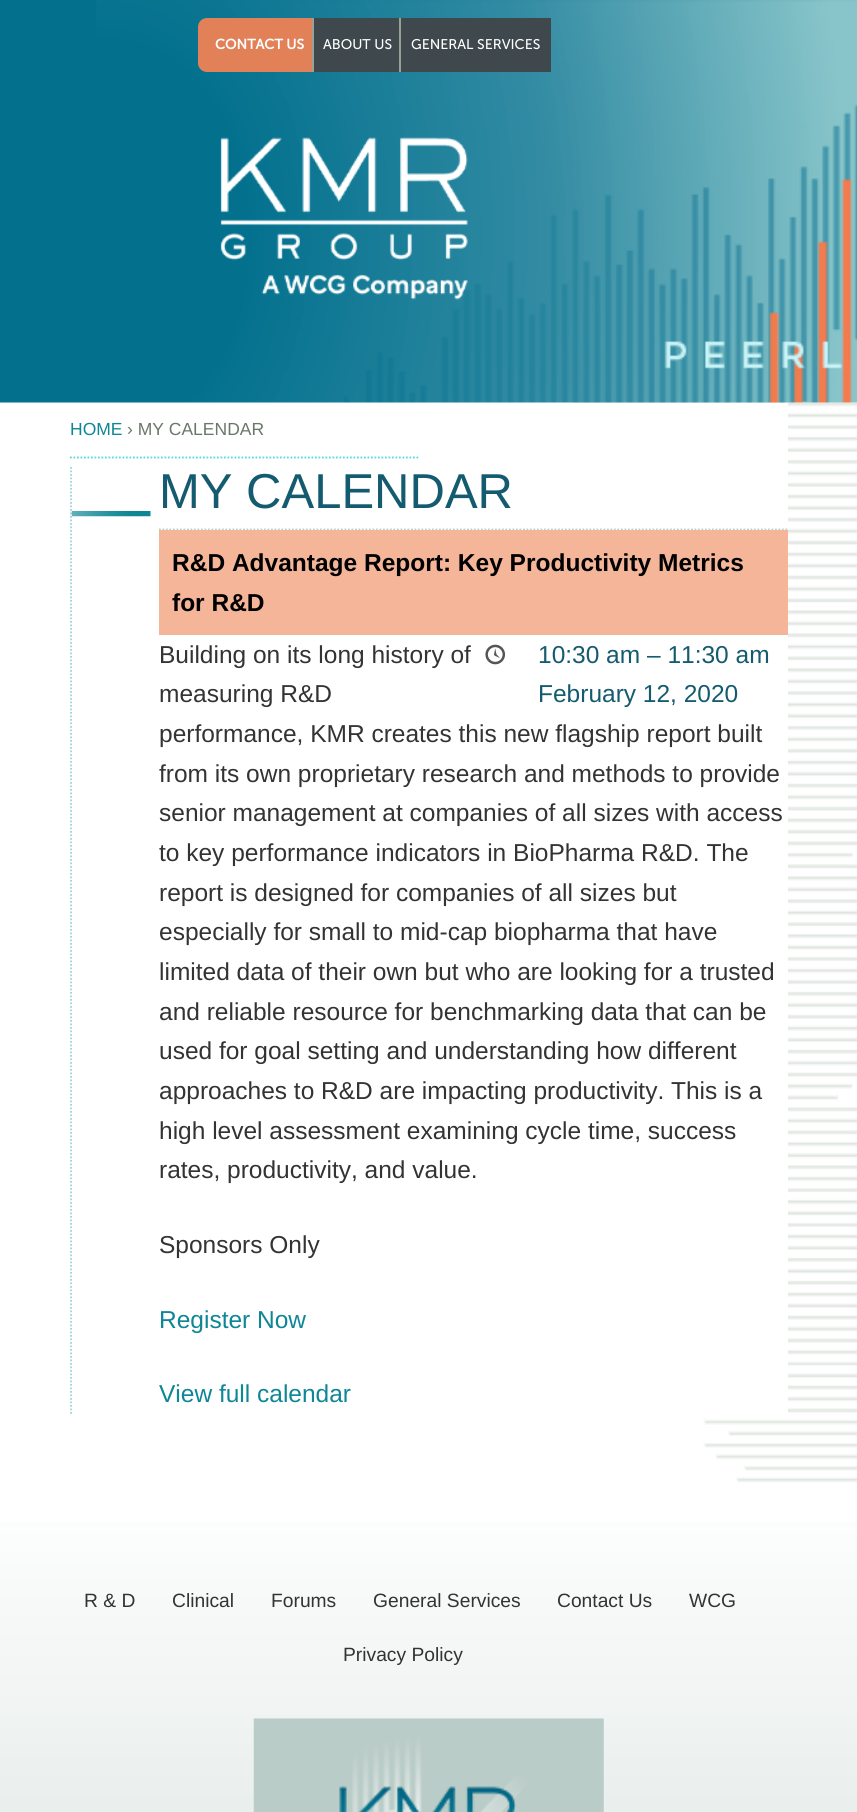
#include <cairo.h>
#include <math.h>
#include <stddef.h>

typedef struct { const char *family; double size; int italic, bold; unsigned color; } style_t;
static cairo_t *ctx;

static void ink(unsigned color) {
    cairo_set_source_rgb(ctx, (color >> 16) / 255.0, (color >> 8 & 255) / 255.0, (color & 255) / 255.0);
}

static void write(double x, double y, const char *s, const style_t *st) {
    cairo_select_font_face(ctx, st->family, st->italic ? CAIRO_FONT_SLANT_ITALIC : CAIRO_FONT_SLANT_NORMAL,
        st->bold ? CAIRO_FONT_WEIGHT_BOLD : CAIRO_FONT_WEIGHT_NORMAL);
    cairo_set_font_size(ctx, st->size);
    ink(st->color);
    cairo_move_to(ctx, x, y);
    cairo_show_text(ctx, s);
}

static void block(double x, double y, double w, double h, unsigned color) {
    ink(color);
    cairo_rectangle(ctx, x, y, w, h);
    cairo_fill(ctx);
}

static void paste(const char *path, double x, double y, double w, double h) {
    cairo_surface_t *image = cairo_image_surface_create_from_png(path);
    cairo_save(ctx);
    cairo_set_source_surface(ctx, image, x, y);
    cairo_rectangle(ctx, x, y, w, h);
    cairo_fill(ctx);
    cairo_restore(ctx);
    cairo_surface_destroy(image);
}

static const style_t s1 = {"Museo Sans", 14, 0, 1, 0xffffff};
static const style_t s2 = {"Museo Sans", 14, 0, 0, 0xffffff};
static const style_t s3 = {"Liberation Sans", 17.5, 0, 0, 0x0d8695};
static const style_t s4 = {"Liberation Sans", 17.5, 0, 0, 0x6a776a};
static const style_t s5 = {"Liberation Sans", 49, 0, 0, 0x155b6f};
static const style_t s6 = {"Liberation Sans", 24.5, 0, 1, 0x000000};
static const style_t s7 = {"Liberation Sans", 24.5, 0, 0, 0x333333};
static const style_t s8 = {"Liberation Sans", 24.5, 0, 0, 0x155b6f};
static const style_t s9 = {"Liberation Sans", 24.5, 0, 0, 0x0d8695};
static const style_t s10 = {"Liberation Sans", 19.25, 0, 0, 0x333333};

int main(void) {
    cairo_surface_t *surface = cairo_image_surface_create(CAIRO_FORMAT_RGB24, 857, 1812);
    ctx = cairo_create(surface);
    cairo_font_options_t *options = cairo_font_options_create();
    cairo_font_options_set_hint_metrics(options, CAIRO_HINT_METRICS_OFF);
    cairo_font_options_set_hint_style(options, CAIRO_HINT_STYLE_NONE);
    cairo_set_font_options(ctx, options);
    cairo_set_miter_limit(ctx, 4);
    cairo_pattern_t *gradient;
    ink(0xffffff);
    cairo_paint(ctx);
    paste("pic1.png", 573, 402, 284, 1082);
    paste("pic2.png", 0, 0, 857, 403);
    ink(0xe28057);
    cairo_new_path(ctx);
    cairo_move_to(ctx, 207, 18);
    cairo_line_to(ctx, 315, 18);
    cairo_line_to(ctx, 315, 72);
    cairo_line_to(ctx, 207, 72);
    cairo_curve_to(ctx, 202, 72, 198, 68, 198, 63);
    cairo_line_to(ctx, 198, 27);
    cairo_curve_to(ctx, 198, 22, 202, 18, 207, 18);
    cairo_close_path(ctx);
    cairo_fill(ctx);
    write(215, 49, "CONTACT US", &s1);
    block(314, 18, 85, 54, 0x3e484d);
    block(312, 18, 2, 54, 0x97a297);
    write(323, 49, "ABOUT US", &s2);
    block(401, 18, 150, 54, 0x3e484d);
    block(399, 18, 2, 54, 0x97a297);
    write(411, 49, "GENERAL SERVICES", &s2);
    paste("pic3.png", 220, 137, 248, 163);
    block(573, 403, 215, 1010, 0xffffff);
    cairo_new_path(ctx);
    cairo_move_to(ctx, 70, 457.5);
    cairo_line_to(ctx, 420, 457.5);
    ink(0x50dadf);
    cairo_set_line_width(ctx, 1.8);
    cairo_set_dash(ctx, (double[]){1.75, 1.75}, 2, 0);
    cairo_stroke(ctx);
    write(70, 435, "HOME", &s3);
    write(127, 435, "› MY CALENDAR", &s4);
    cairo_new_path(ctx);
    cairo_move_to(ctx, 71, 467);
    cairo_line_to(ctx, 71, 1414);
    ink(0x9ad3da);
    cairo_stroke(ctx);
    paste("pic4.png", 71, 511, 80, 6);
    write(159, 508, "MY CALENDAR", &s5);
    cairo_new_path(ctx);
    cairo_move_to(ctx, 159, 529.5);
    cairo_line_to(ctx, 787.5, 529.5);
    ink(0xbaccc7);
    cairo_stroke(ctx);
    block(159, 530, 629, 105, 0xf4b599);
    write(172, 571, "R&D Advantage Report: Key Productivity Metrics", &s6);
    write(172, 611, "for R&D", &s6);
    write(159, 663, "Building on its long history of", &s7);
    write(159, 702, "measuring R&D", &s7);
    write(159, 742, "performance, KMR creates this new flagship report built", &s7);
    write(159, 782, "from its own proprietary research and methods to provide", &s7);
    write(159, 821, "senior management at companies of all sizes with access", &s7);
    write(159, 861, "to key performance indicators in BioPharma R&D. The", &s7);
    write(159, 901, "report is designed for companies of all sizes but", &s7);
    write(159, 940, "especially for small to mid-cap biopharma that have", &s7);
    write(159, 980, "limited data of their own but who are looking for a trusted", &s7);
    write(159, 1020, "and reliable resource for benchmarking data that can be", &s7);
    write(159, 1059, "used for goal setting and understanding how different", &s7);
    write(159, 1099, "approaches to R&D are impacting productivity. This is a", &s7);
    write(159, 1139, "high level assessment examining cycle time, success", &s7);
    write(159, 1178, "rates, productivity, and value.", &s7);
    write(159, 1253, "Sponsors Only", &s7);
    paste("pic5.png", 485, 644, 21, 21);
    write(538, 663, "10:30 am – 11:30 am", &s8);
    write(538, 702, "February 12, 2020", &s8);
    write(159, 1328, "Register Now", &s9);
    write(159, 1402, "View full calendar", &s9);
    gradient = cairo_pattern_create_linear(429, 1484, 429, 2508);
    cairo_pattern_add_color_stop_rgba(gradient, 0, 1, 1, 1, 1);
    cairo_pattern_add_color_stop_rgba(gradient, 1, 0.729, 0.8, 0.78, 1);
    cairo_set_source(ctx, gradient);
    cairo_pattern_destroy(gradient);
    cairo_rectangle(ctx, 0, 1521, 857, 291);
    cairo_fill(ctx);
    write(84, 1607, "R & D", &s10);
    write(172, 1607, "Clinical", &s10);
    write(271, 1607, "Forums", &s10);
    write(373, 1607, "General Services", &s10);
    write(557, 1607, "Contact Us", &s10);
    write(689, 1607, "WCG", &s10);
    write(343, 1661, "Privacy Policy", &s10);
    paste("pic6.png", 253, 1718, 351, 94);
    cairo_surface_write_to_png(surface, "screenshot.png");
    cairo_font_options_destroy(options);
    cairo_destroy(ctx);
    cairo_surface_destroy(surface);
    return 0;
}
